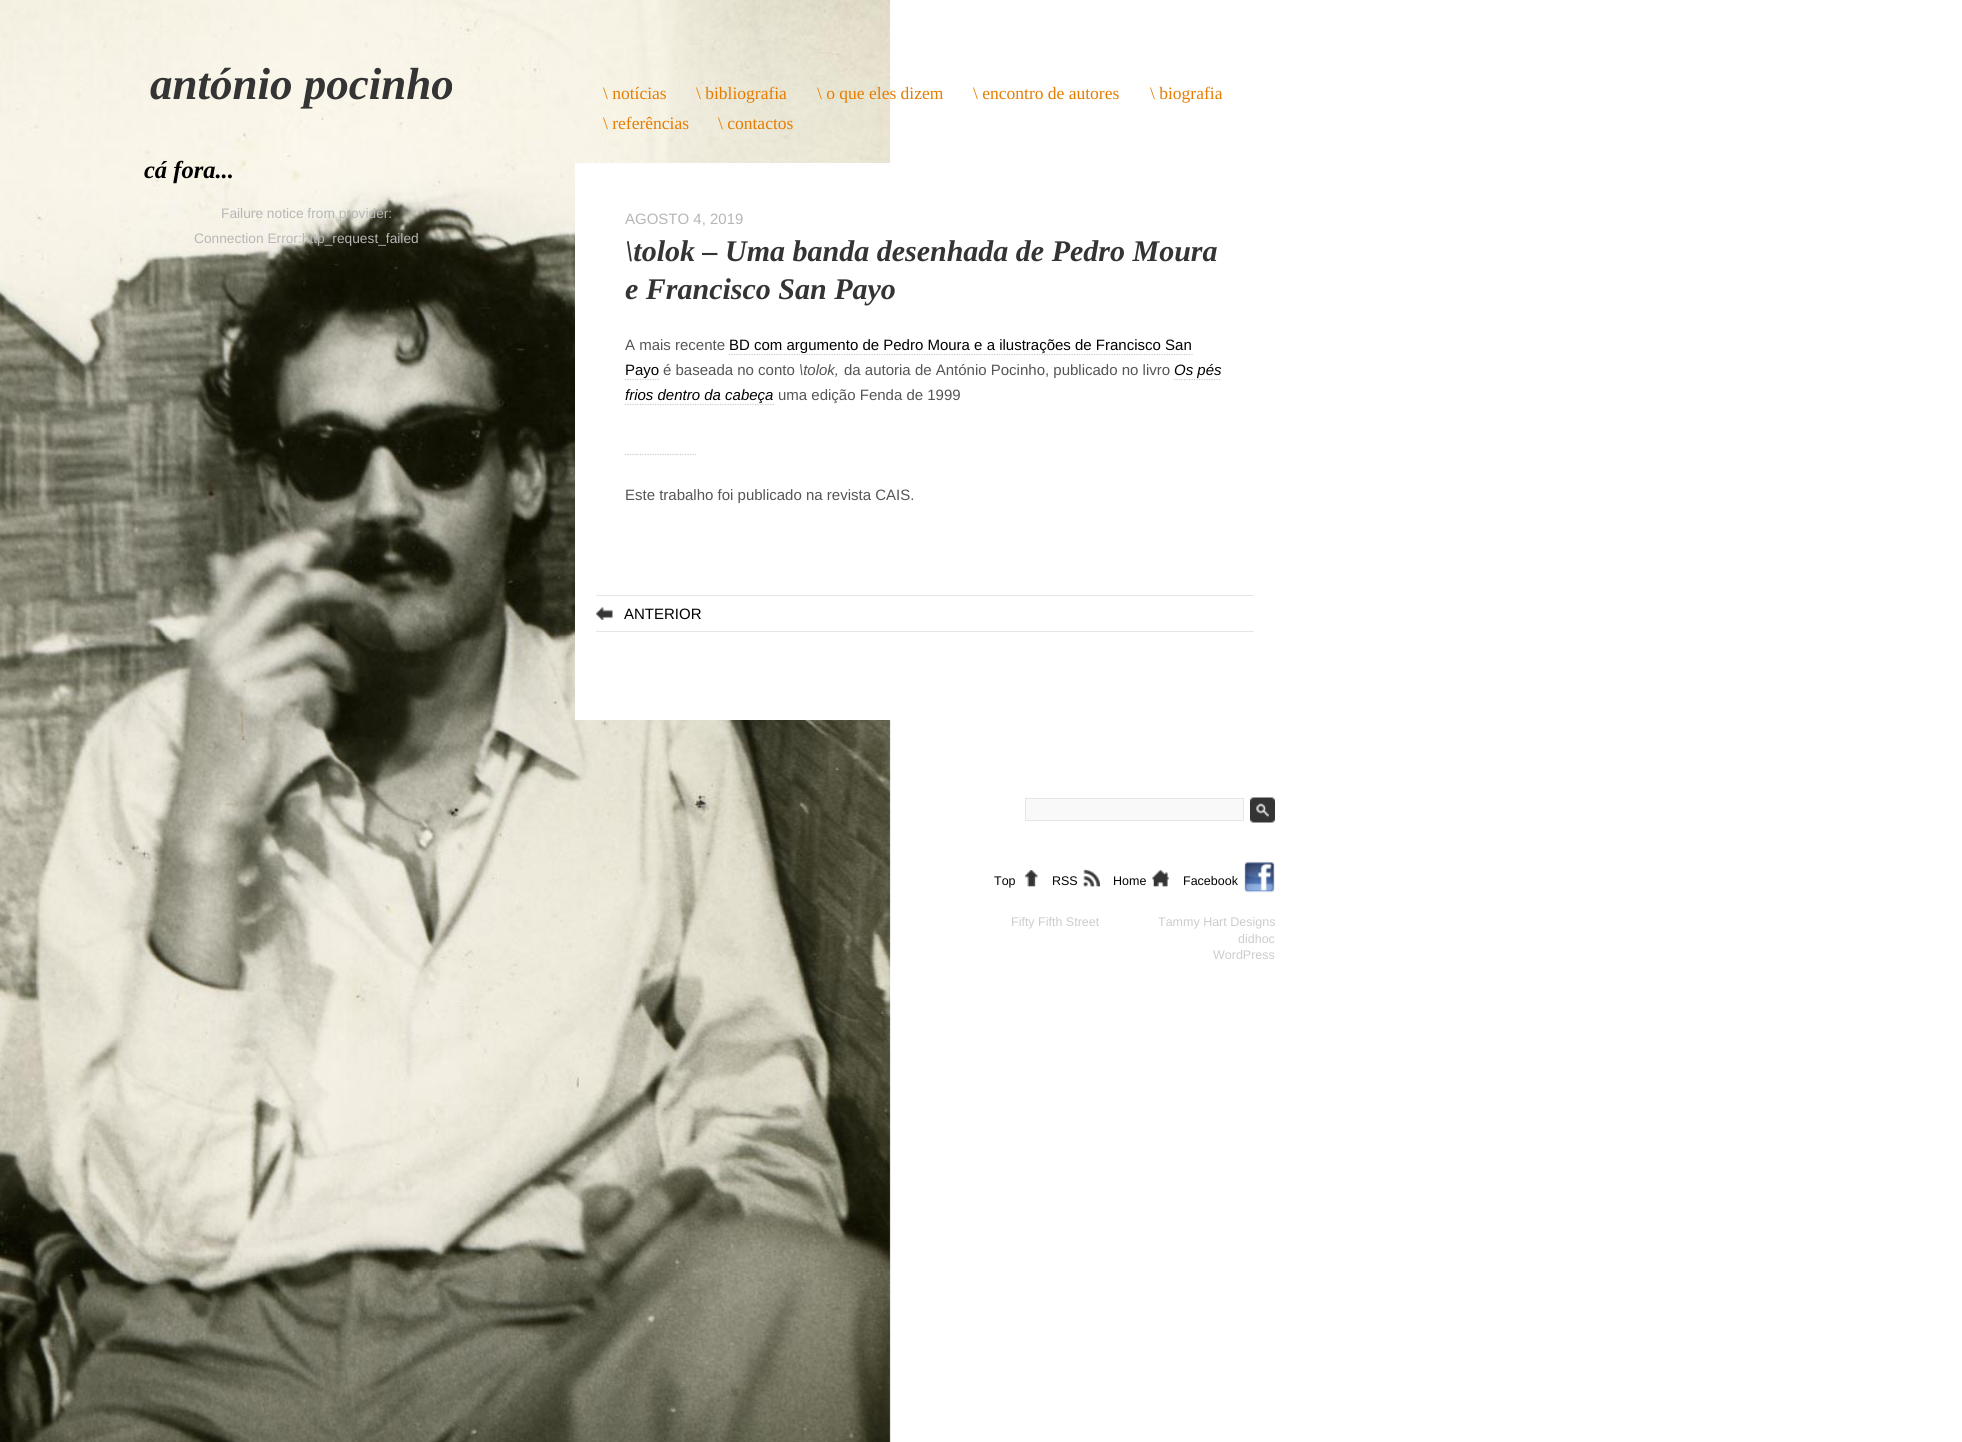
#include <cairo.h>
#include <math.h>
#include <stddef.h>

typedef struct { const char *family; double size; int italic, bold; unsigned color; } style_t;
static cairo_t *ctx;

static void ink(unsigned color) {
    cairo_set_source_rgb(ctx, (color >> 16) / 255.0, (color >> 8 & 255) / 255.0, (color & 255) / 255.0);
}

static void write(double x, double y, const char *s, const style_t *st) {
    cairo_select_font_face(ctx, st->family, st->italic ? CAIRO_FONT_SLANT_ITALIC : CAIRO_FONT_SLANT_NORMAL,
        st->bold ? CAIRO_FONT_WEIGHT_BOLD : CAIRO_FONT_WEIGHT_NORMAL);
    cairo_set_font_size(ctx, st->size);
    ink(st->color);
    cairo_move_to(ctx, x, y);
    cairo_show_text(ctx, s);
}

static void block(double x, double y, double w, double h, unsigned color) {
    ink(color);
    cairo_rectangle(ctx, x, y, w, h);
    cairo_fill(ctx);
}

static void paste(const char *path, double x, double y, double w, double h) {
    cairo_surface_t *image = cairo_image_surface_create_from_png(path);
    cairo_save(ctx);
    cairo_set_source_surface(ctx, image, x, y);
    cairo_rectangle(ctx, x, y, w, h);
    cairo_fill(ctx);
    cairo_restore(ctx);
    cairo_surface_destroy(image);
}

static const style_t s1 = {"Liberation Serif", 45, 1, 1, 0x343434};
static const style_t s2 = {"Liberation Serif", 17.5, 0, 0, 0xe67c00};
static const style_t s3 = {"Liberation Serif", 24.5, 1, 1, 0x000000};
static const style_t s4 = {"Liberation Sans", 13.75, 0, 0, 0xb6b6b6};
static const style_t s5 = {"Liberation Sans", 15, 0, 0, 0xb6b6b6};
static const style_t s6 = {"Liberation Serif", 30, 1, 1, 0x343434};
static const style_t s7 = {"Liberation Sans", 15, 0, 0, 0x555555};
static const style_t s8 = {"Liberation Sans", 15, 0, 0, 0x000000};
static const style_t s9 = {"Liberation Sans", 15, 1, 0, 0x555555};
static const style_t s10 = {"Liberation Sans", 15, 1, 0, 0x000000};
static const style_t s11 = {"Liberation Sans", 12.5, 0, 0, 0x000000};
static const style_t s12 = {"Liberation Sans", 12.5, 0, 0, 0xcccccc};

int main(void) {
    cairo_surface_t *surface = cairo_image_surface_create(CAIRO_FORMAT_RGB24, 1962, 1442);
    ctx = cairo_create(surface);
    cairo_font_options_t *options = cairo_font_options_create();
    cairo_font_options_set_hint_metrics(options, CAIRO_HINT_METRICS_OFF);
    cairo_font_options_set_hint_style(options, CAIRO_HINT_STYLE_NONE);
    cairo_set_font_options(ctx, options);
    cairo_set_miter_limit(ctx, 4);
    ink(0xffffff);
    cairo_paint(ctx);
    paste("pic1.png", 0, 0, 891, 1442);
    write(150, 99, "antónio pocinho", &s1);
    write(603, 99, "\\ notícias", &s2);
    write(696, 99, "\\ bibliografia", &s2);
    write(817, 99, "\\ o que eles dizem", &s2);
    write(973, 99, "\\ encontro de autores", &s2);
    write(1150, 99, "\\ biografia", &s2);
    write(603, 129, "\\ referências", &s2);
    write(718, 129, "\\ contactos", &s2);
    write(144, 178, "cá fora...", &s3);
    write(221, 218, "Failure notice from provider:", &s4);
    write(194, 243, "Connection Error:http_request_failed", &s4);
    block(575, 163, 316, 557, 0xffffff);
    write(625, 224, "AGOSTO 4, 2019", &s5);
    write(625, 261, "\\tolok – Uma banda desenhada de Pedro Moura", &s6);
    write(625, 299, "e Francisco San Payo", &s6);
    write(625, 350, "A mais recente", &s7);
    cairo_new_path(ctx);
    cairo_move_to(ctx, 729, 354.5);
    cairo_line_to(ctx, 1192.5, 354.5);
    ink(0xcccccc);
    cairo_set_line_width(ctx, 1.2);
    cairo_set_dash(ctx, (double[]){1.25, 1.25}, 2, 0);
    cairo_stroke(ctx);
    write(729, 350, "BD com argumento de Pedro Moura e a ilustrações de Francisco San", &s8);
    cairo_new_path(ctx);
    cairo_move_to(ctx, 625, 379.5);
    cairo_line_to(ctx, 659, 379.5);
    ink(0xcccccc);
    cairo_stroke(ctx);
    write(625, 375, "Payo", &s8);
    write(663, 375, "é baseada no conto", &s7);
    write(799, 375, "\\tolok,", &s9);
    write(844, 375, "da autoria de António Pocinho, publicado no livro", &s7);
    cairo_new_path(ctx);
    cairo_move_to(ctx, 1174, 379.5);
    cairo_line_to(ctx, 1221, 379.5);
    ink(0xcccccc);
    cairo_stroke(ctx);
    write(1174, 375, "Os pés", &s10);
    cairo_new_path(ctx);
    cairo_move_to(ctx, 625, 404.5);
    cairo_line_to(ctx, 774, 404.5);
    ink(0xcccccc);
    cairo_stroke(ctx);
    write(625, 400, "frios dentro da cabeça", &s10);
    write(778, 400, "uma edição Fenda de 1999", &s7);
    cairo_new_path(ctx);
    cairo_move_to(ctx, 625, 454.5);
    cairo_line_to(ctx, 696, 454.5);
    ink(0xcccccc);
    cairo_stroke(ctx);
    write(625, 500, "Este trabalho foi publicado na revista CAIS.", &s7);
    block(596, 595, 658, 1, 0xe6e6e6);
    block(596, 631, 658, 1, 0xe6e6e6);
    paste("pic2.png", 596, 607, 17, 13);
    write(624, 619, "ANTERIOR", &s8);
    ink(0xf9f9f9);
    cairo_rectangle(ctx, 1025.5, 798.5, 218, 22);
    cairo_fill_preserve(ctx);
    ink(0xe6e6e6);
    cairo_set_line_width(ctx, 1);
    cairo_set_dash(ctx, NULL, 0, 0);
    cairo_stroke(ctx);
    paste("pic3.png", 1250, 797, 25, 26);
    write(994, 885, "Top", &s11);
    paste("pic4.png", 1024, 870, 14, 17);
    write(1052, 885, "RSS", &s11);
    paste("pic5.png", 1083, 869, 17, 18);
    write(1113, 885, "Home", &s11);
    paste("pic6.png", 1152, 869, 17, 18);
    write(1183, 885, "Facebook", &s11);
    paste("pic7.png", 1244, 861, 31, 32);
    write(1011, 926, "Fifty Fifth Street", &s12);
    write(1158, 926, "Tammy Hart Designs", &s12);
    write(1238, 943, "didhoc", &s12);
    write(1213, 959, "WordPress", &s12);
    cairo_surface_write_to_png(surface, "screenshot.png");
    cairo_font_options_destroy(options);
    cairo_destroy(ctx);
    cairo_surface_destroy(surface);
    return 0;
}
